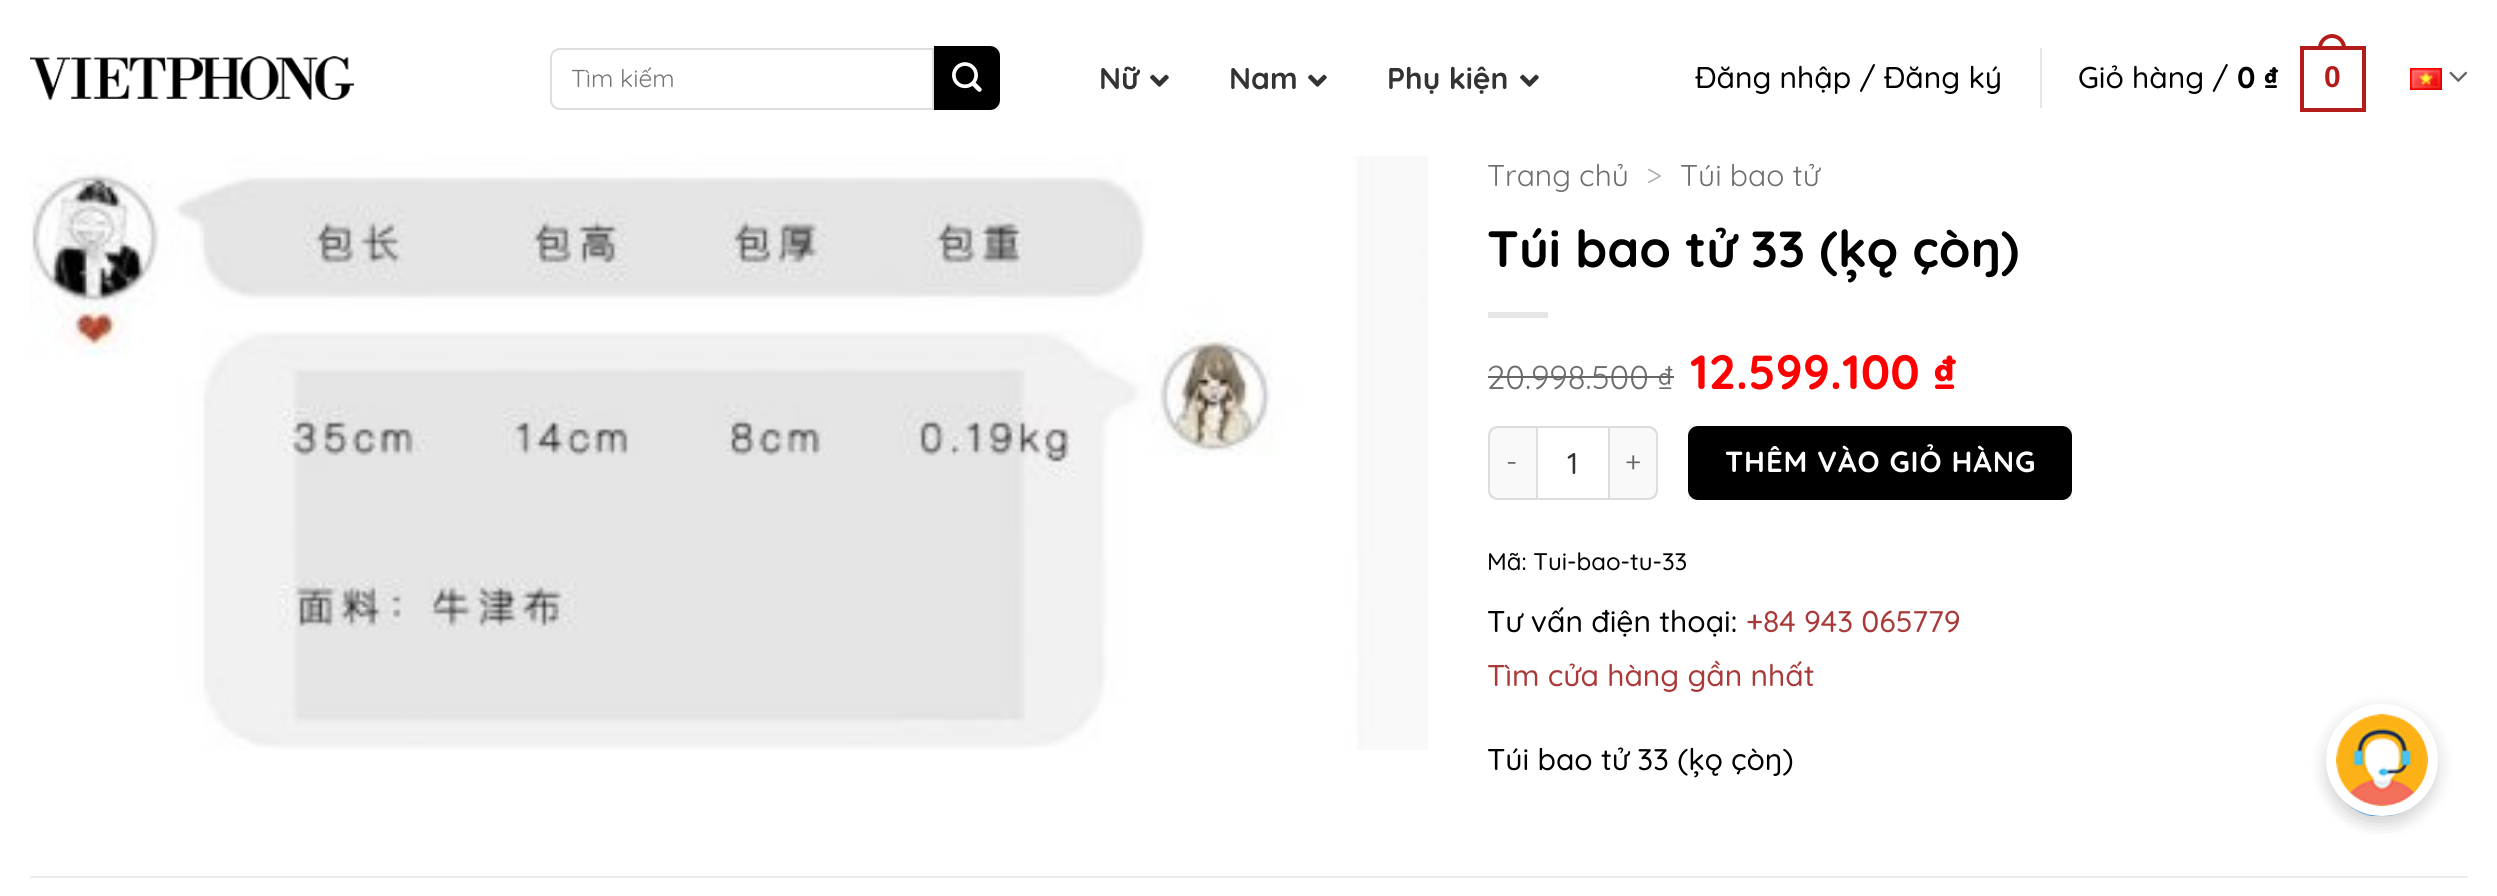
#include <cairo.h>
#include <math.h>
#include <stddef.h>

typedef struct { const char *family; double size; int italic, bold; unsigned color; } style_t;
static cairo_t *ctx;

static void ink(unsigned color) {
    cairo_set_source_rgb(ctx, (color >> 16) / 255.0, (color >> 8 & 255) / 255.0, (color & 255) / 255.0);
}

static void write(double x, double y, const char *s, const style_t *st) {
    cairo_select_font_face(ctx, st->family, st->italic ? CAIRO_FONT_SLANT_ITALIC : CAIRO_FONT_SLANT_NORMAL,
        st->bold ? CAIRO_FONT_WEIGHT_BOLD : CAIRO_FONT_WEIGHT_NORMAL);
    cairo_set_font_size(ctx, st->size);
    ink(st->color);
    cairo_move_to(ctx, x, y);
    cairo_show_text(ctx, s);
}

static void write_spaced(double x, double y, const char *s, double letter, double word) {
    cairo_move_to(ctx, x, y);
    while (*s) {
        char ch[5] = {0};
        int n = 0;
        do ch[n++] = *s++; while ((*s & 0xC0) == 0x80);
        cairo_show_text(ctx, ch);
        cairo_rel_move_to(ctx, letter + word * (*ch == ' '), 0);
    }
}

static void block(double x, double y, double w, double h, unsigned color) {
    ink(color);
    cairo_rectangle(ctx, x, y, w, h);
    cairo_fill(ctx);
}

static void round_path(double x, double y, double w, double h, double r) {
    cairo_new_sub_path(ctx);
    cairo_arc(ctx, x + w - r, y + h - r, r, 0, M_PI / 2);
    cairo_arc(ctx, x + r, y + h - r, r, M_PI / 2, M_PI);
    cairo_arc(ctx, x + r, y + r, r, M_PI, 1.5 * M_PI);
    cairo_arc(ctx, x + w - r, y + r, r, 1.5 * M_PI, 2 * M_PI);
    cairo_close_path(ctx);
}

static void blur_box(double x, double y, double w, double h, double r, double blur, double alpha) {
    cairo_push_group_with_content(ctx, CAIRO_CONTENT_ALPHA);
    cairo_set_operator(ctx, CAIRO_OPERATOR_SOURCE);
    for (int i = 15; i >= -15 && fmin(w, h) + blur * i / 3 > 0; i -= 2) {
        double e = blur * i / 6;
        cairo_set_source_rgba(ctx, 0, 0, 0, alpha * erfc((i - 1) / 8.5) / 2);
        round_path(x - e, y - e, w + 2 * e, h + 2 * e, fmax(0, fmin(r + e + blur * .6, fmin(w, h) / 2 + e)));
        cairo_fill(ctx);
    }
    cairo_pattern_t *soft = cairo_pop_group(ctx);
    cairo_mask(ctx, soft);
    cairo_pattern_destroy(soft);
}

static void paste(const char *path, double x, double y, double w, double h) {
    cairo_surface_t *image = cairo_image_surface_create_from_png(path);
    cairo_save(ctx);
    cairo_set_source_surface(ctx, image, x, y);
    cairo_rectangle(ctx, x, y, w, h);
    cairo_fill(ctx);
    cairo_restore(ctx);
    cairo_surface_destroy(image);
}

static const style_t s1 = {"Quicksand", 24.5, 0, 0, 0x757575};
static const style_t s2 = {"Quicksand", 30, 0, 1, 0x333333};
static const style_t s3 = {"Quicksand Medium", 30, 0, 0, 0x000000};
static const style_t s4 = {"Quicksand", 30, 0, 1, 0x000000};
static const style_t s5 = {"Liberation Sans", 30, 0, 1, 0xb41c1c};
static const style_t s6 = {"Quicksand", 30, 0, 0, 0x6e6e6e};
static const style_t s7 = {"Quicksand", 30, 0, 0, 0xb2b2b2};
static const style_t s8 = {"Quicksand", 51, 0, 1, 0x000000};
static const style_t s9 = {"Quicksand", 33, 0, 0, 0x6e6e6e};
static const style_t s10 = {"Quicksand", 48, 0, 1, 0xff0000};
static const style_t s11 = {"Quicksand Medium", 30, 0, 0, 0x333333};
static const style_t s12 = {"Quicksand Medium", 24, 0, 0, 0x000000};
static const style_t s13 = {"Quicksand Medium", 30, 0, 0, 0xaa3a3a};

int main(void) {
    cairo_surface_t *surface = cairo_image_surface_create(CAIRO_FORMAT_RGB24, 2497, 896);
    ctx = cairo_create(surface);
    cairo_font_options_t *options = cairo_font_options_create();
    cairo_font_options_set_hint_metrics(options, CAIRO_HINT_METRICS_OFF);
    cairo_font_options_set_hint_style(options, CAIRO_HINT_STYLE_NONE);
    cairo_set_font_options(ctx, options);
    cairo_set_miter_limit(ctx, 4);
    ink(0xffffff);
    cairo_paint(ctx);
    paste("pic1.png", 30, 56, 324, 44);
    cairo_new_path(ctx);
    cairo_move_to(ctx, 560, 49);
    cairo_line_to(ctx, 933, 49);
    cairo_line_to(ctx, 933, 109);
    cairo_line_to(ctx, 560, 109);
    cairo_curve_to(ctx, 555, 109, 551, 105, 551, 100);
    cairo_line_to(ctx, 551, 58);
    cairo_curve_to(ctx, 551, 53, 555, 49, 560, 49);
    cairo_close_path(ctx);
    ink(0xdddddd);
    cairo_stroke(ctx);
    write(571, 87, "Tìm kiếm", &s1);
    ink(0x000000);
    cairo_new_path(ctx);
    cairo_move_to(ctx, 934, 46);
    cairo_line_to(ctx, 990, 46);
    cairo_curve_to(ctx, 995.5, 46, 1000, 50.5, 1000, 56);
    cairo_line_to(ctx, 1000, 100);
    cairo_curve_to(ctx, 1000, 105.5, 995.5, 110, 990, 110);
    cairo_line_to(ctx, 934, 110);
    cairo_close_path(ctx);
    cairo_fill(ctx);
    cairo_rectangle(ctx, 935, 47, 64, 62);
    cairo_set_source_rgba(ctx, 0, 0, 0, 0.05);
    cairo_stroke(ctx);
    paste("pic2.png", 952, 62, 30, 30);
    write(1099, 89, "Nữ", &s2);
    paste("pic3.png", 1150, 74, 19, 13);
    write(1229, 89, "Nam", &s2);
    paste("pic3.png", 1308, 74, 19, 13);
    write(1387, 89, "Phụ kiện", &s2);
    paste("pic3.png", 1520, 74, 19, 13);
    write(1695, 88, "Đăng nhập / Đăng ký", &s3);
    block(2040, 48, 2, 60, 0xe6e6e6);
    write(2078, 88, "Giỏ hàng /", &s3);
    write(2237, 88, "0 ₫", &s4);
    cairo_rectangle(ctx, 2302, 48, 62, 62);
    ink(0xb41c1c);
    cairo_set_line_width(ctx, 4);
    cairo_stroke(ctx);
    cairo_set_fill_rule(ctx, CAIRO_FILL_RULE_EVEN_ODD);
    cairo_new_path(ctx);
    cairo_move_to(ctx, 2332, 34);
    cairo_curve_to(ctx, 2339.5, 34, 2346, 40.5, 2346, 48);
    cairo_line_to(ctx, 2346, 50);
    cairo_line_to(ctx, 2318, 50);
    cairo_line_to(ctx, 2318, 48);
    cairo_curve_to(ctx, 2318, 40.5, 2324.5, 34, 2332, 34);
    cairo_close_path(ctx);
    cairo_move_to(ctx, 2332, 38);
    cairo_curve_to(ctx, 2337.5, 38, 2342, 42.5, 2342, 48);
    cairo_line_to(ctx, 2342, 50);
    cairo_line_to(ctx, 2322, 50);
    cairo_line_to(ctx, 2322, 48);
    cairo_curve_to(ctx, 2322, 42.5, 2326.5, 38, 2332, 38);
    cairo_close_path(ctx);
    cairo_fill(ctx);
    write(2324, 87, "0", &s5);
    paste("pic4.png", 2410, 68, 32, 22);
    paste("pic5.png", 2449, 71, 19, 11);
    paste("pic6.png", 30, 156, 1398, 594);
    write(1487, 186, "Trang chủ", &s6);
    write(1646, 186, ">", &s7);
    write(1680, 186, "Túi bao tử", &s6);
    write(1487, 267, "Túi bao tử 33 (ķǫ çòŋ)", &s8);
    block(1488, 312, 60, 6, 0xe6e6e6);
    write(1487, 389, "20.998.500 ₫", &s9);
    block(1488, 376, 186, 2, 0x666666);
    write(1690, 389, "12.599.100 ₫", &s10);
    ink(0xf9f9f9);
    cairo_new_path(ctx);
    cairo_move_to(ctx, 1498, 426);
    cairo_line_to(ctx, 1536, 426);
    cairo_line_to(ctx, 1536, 500);
    cairo_line_to(ctx, 1498, 500);
    cairo_curve_to(ctx, 1492.5, 500, 1488, 495.5, 1488, 490);
    cairo_line_to(ctx, 1488, 436);
    cairo_curve_to(ctx, 1488, 430.5, 1492.5, 426, 1498, 426);
    cairo_close_path(ctx);
    cairo_fill(ctx);
    ink(0xdddddd);
    cairo_new_path(ctx);
    cairo_move_to(ctx, 1498, 426);
    cairo_line_to(ctx, 1536, 426);
    cairo_line_to(ctx, 1536, 500);
    cairo_line_to(ctx, 1498, 500);
    cairo_curve_to(ctx, 1492, 500, 1488, 496, 1488, 490);
    cairo_line_to(ctx, 1488, 436);
    cairo_curve_to(ctx, 1488, 430, 1492, 426, 1498, 426);
    cairo_close_path(ctx);
    cairo_move_to(ctx, 1498, 428);
    cairo_line_to(ctx, 1536, 428);
    cairo_line_to(ctx, 1536, 498);
    cairo_line_to(ctx, 1498, 498);
    cairo_curve_to(ctx, 1494, 498, 1490, 494, 1490, 490);
    cairo_line_to(ctx, 1490, 436);
    cairo_curve_to(ctx, 1490, 432, 1494, 428, 1498, 428);
    cairo_close_path(ctx);
    cairo_fill(ctx);
    cairo_select_font_face(ctx, "Quicksand", CAIRO_FONT_SLANT_NORMAL, CAIRO_FONT_WEIGHT_NORMAL);
    cairo_set_font_size(ctx, 29.1);
    ink(0x666666);
    write_spaced(1506, 472, "-", 0.9, 0);
    cairo_rectangle(ctx, 1537, 427, 72, 72);
    ink(0xdddddd);
    cairo_set_line_width(ctx, 2);
    cairo_stroke(ctx);
    write(1567, 474, "1", &s11);
    ink(0xf9f9f9);
    cairo_new_path(ctx);
    cairo_move_to(ctx, 1610, 426);
    cairo_line_to(ctx, 1648, 426);
    cairo_curve_to(ctx, 1653.5, 426, 1658, 430.5, 1658, 436);
    cairo_line_to(ctx, 1658, 490);
    cairo_curve_to(ctx, 1658, 495.5, 1653.5, 500, 1648, 500);
    cairo_line_to(ctx, 1610, 500);
    cairo_close_path(ctx);
    cairo_fill(ctx);
    ink(0xdddddd);
    cairo_new_path(ctx);
    cairo_move_to(ctx, 1610, 426);
    cairo_line_to(ctx, 1648, 426);
    cairo_curve_to(ctx, 1654, 426, 1658, 430, 1658, 436);
    cairo_line_to(ctx, 1658, 490);
    cairo_curve_to(ctx, 1658, 496, 1654, 500, 1648, 500);
    cairo_line_to(ctx, 1610, 500);
    cairo_close_path(ctx);
    cairo_move_to(ctx, 1610, 428);
    cairo_line_to(ctx, 1648, 428);
    cairo_curve_to(ctx, 1652, 428, 1656, 432, 1656, 436);
    cairo_line_to(ctx, 1656, 490);
    cairo_curve_to(ctx, 1656, 494, 1652, 498, 1648, 498);
    cairo_line_to(ctx, 1610, 498);
    cairo_close_path(ctx);
    cairo_fill(ctx);
    cairo_select_font_face(ctx, "Quicksand", CAIRO_FONT_SLANT_NORMAL, CAIRO_FONT_WEIGHT_NORMAL);
    cairo_set_font_size(ctx, 29.1);
    ink(0x666666);
    write_spaced(1625, 472, "+", 0.9, 0);
    ink(0x000000);
    round_path(1688, 426, 384, 74, 10);
    cairo_fill(ctx);
    cairo_rectangle(ctx, 1689, 427, 382, 72);
    cairo_set_source_rgba(ctx, 0, 0, 0, 0.05);
    cairo_stroke(ctx);
    cairo_select_font_face(ctx, "Quicksand", CAIRO_FONT_SLANT_NORMAL, CAIRO_FONT_WEIGHT_BOLD);
    ink(0xffffff);
    write_spaced(1725, 472, "THÊM VÀO GIỎ HÀNG", 0.9, 0);
    write(1487, 570, "Mã: Tui-bao-tu-33", &s12);
    write(1487, 632, "Tư vấn điện thoại:", &s3);
    write(1746, 632, "+84 943 065779", &s13);
    write(1487, 686, "Tìm cửa hàng gần nhất", &s13);
    write(1487, 770, "Túi bao tử 33 (ķǫ çòŋ)", &s3);
    block(30, 876, 2438, 2, 0xececec);
    ink(0x000000);
    blur_box(2332, 726, 96, 96, 48, 10, 0.04);
    paste("pic8.png", 2335, 790, 75, 26);
    blur_box(2326, 710, 112, 112, 56, 10, 0.08);
    blur_box(2326, 710, 112, 112, 56, 10, 0.08);
    blur_box(2332, 726, 96, 96, 48, 10, 0.04);
    ink(0xffffff);
    cairo_arc(ctx, 2382, 760, 51, 0, 2 * M_PI);
    cairo_fill_preserve(ctx);
    cairo_set_line_width(ctx, 10);
    cairo_stroke(ctx);
    paste("pic7.png", 2336, 714, 92, 92);
    cairo_surface_write_to_png(surface, "screenshot.png");
    cairo_font_options_destroy(options);
    cairo_destroy(ctx);
    cairo_surface_destroy(surface);
    return 0;
}
